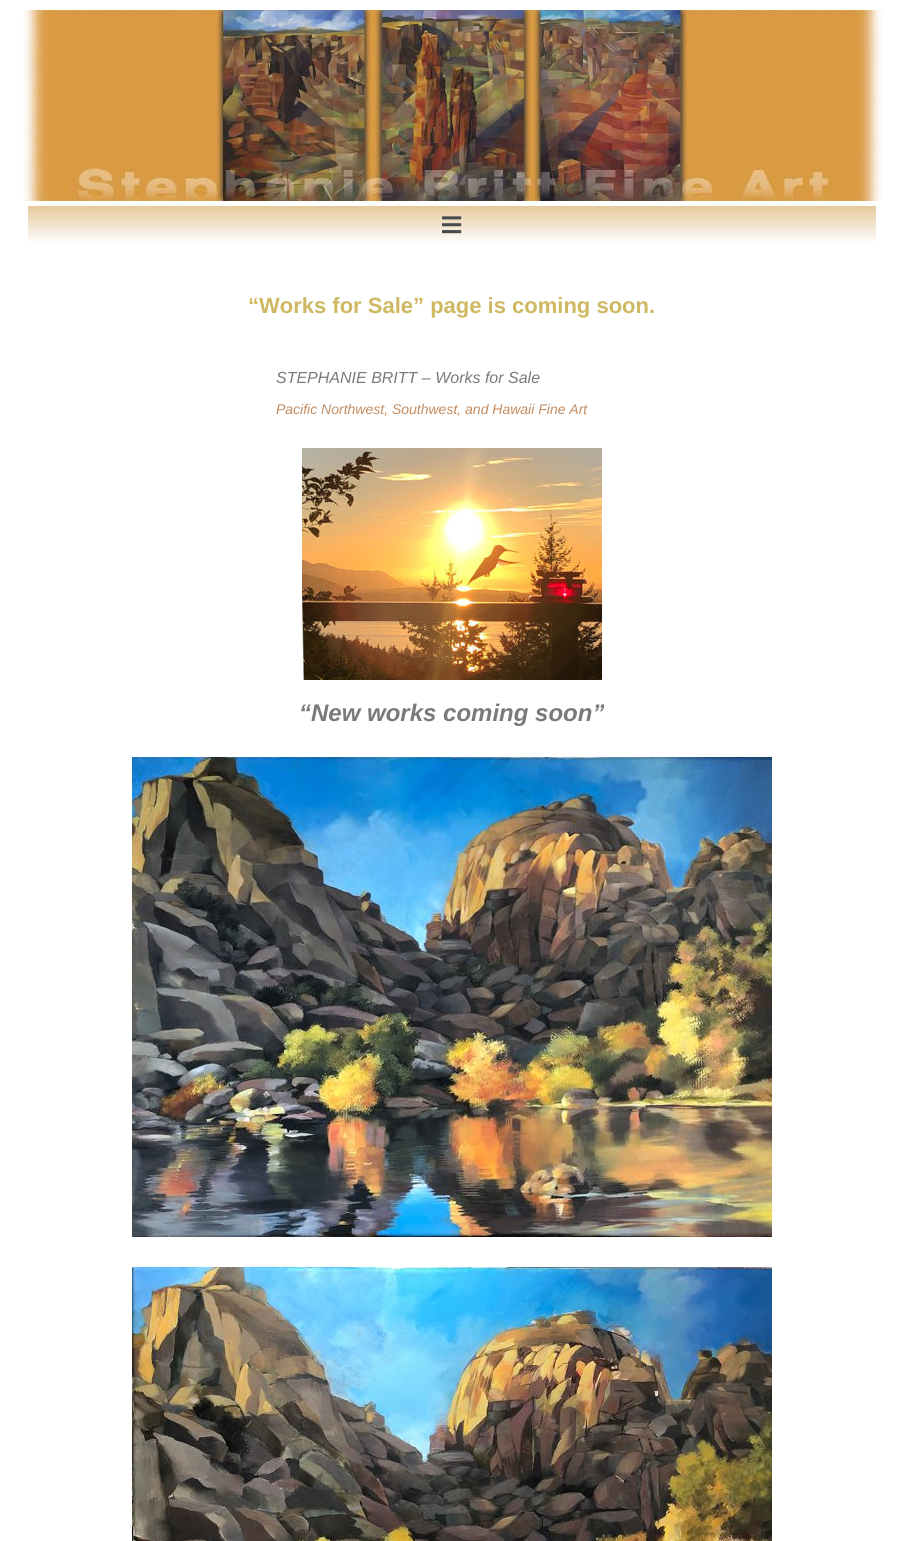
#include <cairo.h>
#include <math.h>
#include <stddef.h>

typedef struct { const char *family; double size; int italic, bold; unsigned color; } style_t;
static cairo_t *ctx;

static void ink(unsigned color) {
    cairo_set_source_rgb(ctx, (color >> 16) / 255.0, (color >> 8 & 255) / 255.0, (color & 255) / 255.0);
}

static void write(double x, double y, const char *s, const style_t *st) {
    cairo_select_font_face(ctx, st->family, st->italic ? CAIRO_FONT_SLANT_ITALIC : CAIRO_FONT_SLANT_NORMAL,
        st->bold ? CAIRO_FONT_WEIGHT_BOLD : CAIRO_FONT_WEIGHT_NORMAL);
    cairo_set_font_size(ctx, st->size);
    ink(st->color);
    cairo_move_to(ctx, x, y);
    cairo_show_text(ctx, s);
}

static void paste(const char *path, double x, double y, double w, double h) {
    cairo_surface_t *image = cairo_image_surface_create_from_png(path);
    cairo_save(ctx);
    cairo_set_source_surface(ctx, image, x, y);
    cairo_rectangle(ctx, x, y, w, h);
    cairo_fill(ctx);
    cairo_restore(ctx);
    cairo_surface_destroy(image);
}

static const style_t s1 = {"Liberation Sans", 22, 0, 1, 0xceb861};
static const style_t s2 = {"Liberation Sans", 16, 1, 0, 0x7a7a7a};
static const style_t s3 = {"Liberation Sans", 14, 1, 0, 0xc38b60};
static const style_t s4 = {"Liberation Sans", 24, 1, 1, 0x7a7a7a};

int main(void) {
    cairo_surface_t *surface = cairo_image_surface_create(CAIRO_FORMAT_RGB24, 904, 1541);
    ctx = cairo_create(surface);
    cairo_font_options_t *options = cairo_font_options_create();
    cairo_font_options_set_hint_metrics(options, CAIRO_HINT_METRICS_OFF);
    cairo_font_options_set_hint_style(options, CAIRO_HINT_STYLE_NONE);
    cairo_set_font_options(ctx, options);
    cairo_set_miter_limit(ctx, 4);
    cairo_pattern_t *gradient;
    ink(0xffffff);
    cairo_paint(ctx);
    paste("pic1.png", 23, 10, 859, 191);
    gradient = cairo_pattern_create_linear(452, 206, 452, 244);
    cairo_pattern_add_color_stop_rgba(gradient, 0, 0.898, 0.788, 0.612, 1);
    cairo_pattern_add_color_stop_rgba(gradient, 1, 1, 1, 1, 1);
    cairo_set_source(ctx, gradient);
    cairo_pattern_destroy(gradient);
    cairo_rectangle(ctx, 28, 206, 848, 37);
    cairo_fill(ctx);
    paste("pic2.png", 442, 216, 20, 18);
    write(248, 313, "“Works for Sale” page is coming soon.", &s1);
    write(276, 383, "STEPHANIE BRITT – Works for Sale", &s2);
    write(276, 414, "Pacific Northwest, Southwest, and Hawaii Fine Art", &s3);
    paste("pic3.png", 302, 448, 300, 232);
    write(299, 721, "“New works coming soon”", &s4);
    paste("pic4.png", 132, 757, 640, 480);
    paste("pic5.png", 132, 1267, 640, 274);
    cairo_surface_write_to_png(surface, "screenshot.png");
    cairo_font_options_destroy(options);
    cairo_destroy(ctx);
    cairo_surface_destroy(surface);
    return 0;
}
